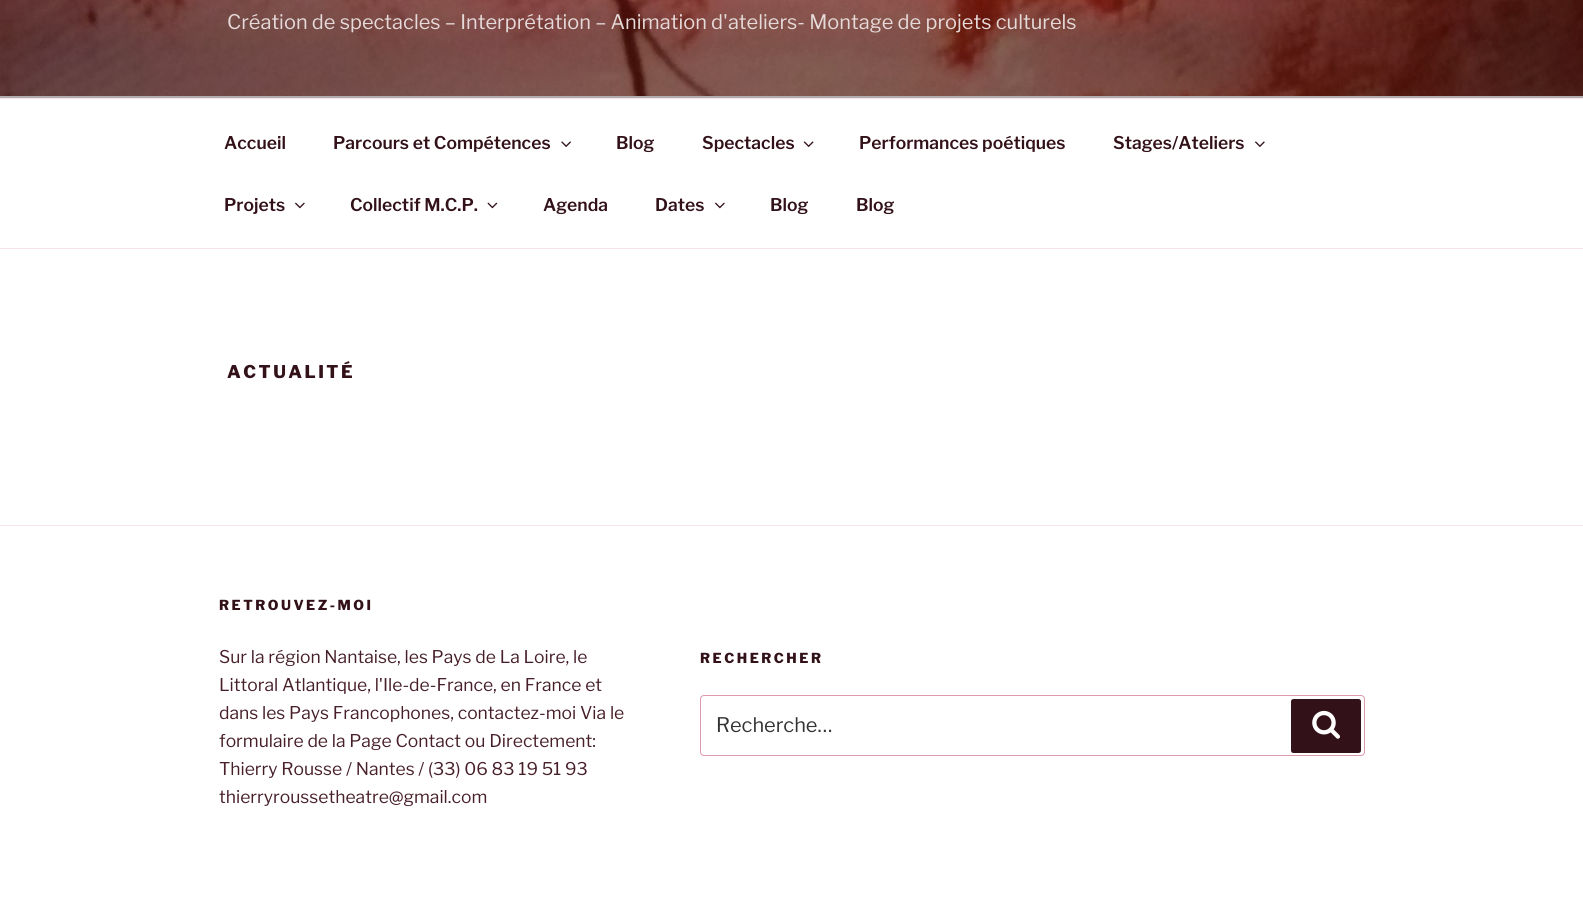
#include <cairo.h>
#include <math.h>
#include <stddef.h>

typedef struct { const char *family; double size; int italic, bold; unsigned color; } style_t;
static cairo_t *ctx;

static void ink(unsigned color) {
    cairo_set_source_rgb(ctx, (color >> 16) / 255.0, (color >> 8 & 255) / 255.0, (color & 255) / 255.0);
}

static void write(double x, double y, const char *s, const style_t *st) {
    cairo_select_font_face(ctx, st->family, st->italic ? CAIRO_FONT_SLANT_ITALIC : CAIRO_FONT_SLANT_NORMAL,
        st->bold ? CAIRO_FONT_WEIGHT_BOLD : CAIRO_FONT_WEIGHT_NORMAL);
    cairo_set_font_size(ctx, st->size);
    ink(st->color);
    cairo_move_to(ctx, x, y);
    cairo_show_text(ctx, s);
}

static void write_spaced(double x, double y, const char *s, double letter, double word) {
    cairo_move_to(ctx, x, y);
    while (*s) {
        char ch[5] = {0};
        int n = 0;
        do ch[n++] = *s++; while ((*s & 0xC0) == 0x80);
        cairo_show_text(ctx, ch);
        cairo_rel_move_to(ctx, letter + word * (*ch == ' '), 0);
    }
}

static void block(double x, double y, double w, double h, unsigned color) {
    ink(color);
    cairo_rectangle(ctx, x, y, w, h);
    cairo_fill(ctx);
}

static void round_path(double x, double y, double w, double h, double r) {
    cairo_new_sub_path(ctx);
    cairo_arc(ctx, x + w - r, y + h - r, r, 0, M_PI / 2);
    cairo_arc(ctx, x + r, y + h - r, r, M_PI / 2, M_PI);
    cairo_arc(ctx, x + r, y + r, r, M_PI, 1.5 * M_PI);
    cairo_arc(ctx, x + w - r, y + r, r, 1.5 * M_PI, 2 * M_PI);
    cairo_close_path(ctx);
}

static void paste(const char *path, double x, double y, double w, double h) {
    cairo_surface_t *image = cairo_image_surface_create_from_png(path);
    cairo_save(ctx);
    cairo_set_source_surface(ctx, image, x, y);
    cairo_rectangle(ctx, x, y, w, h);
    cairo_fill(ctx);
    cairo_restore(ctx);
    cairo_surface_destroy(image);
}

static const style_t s1 = {"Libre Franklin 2 Thin", 20, 0, 0, 0xe5dad9};
static const style_t s2 = {"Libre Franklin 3 Thin", 17.5, 0, 0, 0x321119};
static const style_t s3 = {"Libre Franklin 2 Thin", 17.5, 0, 0, 0x471f29};
static const style_t s4 = {"Libre Franklin 2 Thin", 20, 0, 0, 0x333333};

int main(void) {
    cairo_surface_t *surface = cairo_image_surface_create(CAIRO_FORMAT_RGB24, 1583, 899);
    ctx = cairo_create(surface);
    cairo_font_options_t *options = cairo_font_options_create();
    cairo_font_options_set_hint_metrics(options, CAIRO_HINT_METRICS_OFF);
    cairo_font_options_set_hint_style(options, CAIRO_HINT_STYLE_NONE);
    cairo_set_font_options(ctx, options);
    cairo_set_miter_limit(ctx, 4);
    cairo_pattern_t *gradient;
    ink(0xffffff);
    cairo_paint(ctx);
    block(0, 96, 1583, 2, 0xfcf7f9);
    paste("pic1.png", 0, 0, 1583, 96);
    gradient = cairo_pattern_create_linear(792, -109, 792, 98);
    cairo_pattern_add_color_stop_rgba(gradient, 0, 0, 0, 0, 0);
    cairo_pattern_add_color_stop_rgba(gradient, 0.75, 0, 0, 0, 0.3);
    cairo_pattern_add_color_stop_rgba(gradient, 1, 0, 0, 0, 0.3);
    cairo_set_source(ctx, gradient);
    cairo_pattern_destroy(gradient);
    cairo_rectangle(ctx, 0, 0, 1583, 98);
    cairo_fill(ctx);
    write(227, 29, "Création de spectacles – Interprétation – Animation d'ateliers- Montage de projets culturels", &s1);
    block(0, 98, 1583, 1, 0xf6e4e9);
    block(0, 248, 1583, 1, 0xf6e4e9);
    write(224, 149, "Accueil", &s2);
    write(333, 149, "Parcours et Compétences", &s2);
    paste("pic2.png", 561, 141, 10, 6);
    write(616, 149, "Blog", &s2);
    write(702, 149, "Spectacles", &s2);
    paste("pic3.png", 803, 141, 11, 6);
    write(859, 149, "Performances poétiques", &s2);
    write(1113, 149, "Stages/Ateliers", &s2);
    paste("pic4.png", 1255, 141, 10, 6);
    write(224, 211, "Projets", &s2);
    paste("pic5.png", 295, 202, 10, 7);
    write(350, 211, "Collectif M.C.P.", &s2);
    paste("pic6.png", 487, 202, 11, 7);
    write(543, 211, "Agenda", &s2);
    write(655, 211, "Dates", &s2);
    paste("pic5.png", 715, 202, 10, 7);
    write(770, 211, "Blog", &s2);
    write(856, 211, "Blog", &s2);
    cairo_select_font_face(ctx, "Libre Franklin Thin", CAIRO_FONT_SLANT_NORMAL, CAIRO_FONT_WEIGHT_NORMAL);
    write_spaced(227, 378, "ACTUALITÉ", 2.5, 0);
    block(0, 525, 1583, 1, 0xf6e4e9);
    cairo_set_font_size(ctx, 13.75);
    ink(0x321119);
    write_spaced(219, 610, "RETROUVEZ-MOI", 2.5, 0);
    write(219, 663, "Sur la région Nantaise, les Pays de La Loire, le", &s3);
    write(219, 691, "Littoral Atlantique, l'Ile-de-France, en France et", &s3);
    write(219, 719, "dans les Pays Francophones, contactez-moi Via le", &s3);
    write(219, 747, "formulaire de la Page Contact ou Directement:", &s3);
    write(219, 775, "Thierry Rousse / Nantes / (33) 06 83 19 51 93", &s3);
    write(219, 803, "thierryroussetheatre@gmail.com", &s3);
    cairo_select_font_face(ctx, "Libre Franklin Thin", CAIRO_FONT_SLANT_NORMAL, CAIRO_FONT_WEIGHT_NORMAL);
    cairo_set_font_size(ctx, 13.75);
    ink(0x321119);
    write_spaced(700, 663, "RECHERCHER", 2.5, 0);
    round_path(700.5, 695.5, 664, 60, 3.5);
    ink(0xdd98a9);
    cairo_set_line_width(ctx, 1);
    cairo_stroke(ctx);
    write(716, 732, "Recherche…", &s4);
    ink(0x321119);
    round_path(1291, 699, 70, 54, 2.5);
    cairo_fill(ctx);
    paste("pic7.png", 1312, 710, 28, 29);
    cairo_surface_write_to_png(surface, "screenshot.png");
    cairo_font_options_destroy(options);
    cairo_destroy(ctx);
    cairo_surface_destroy(surface);
    return 0;
}
